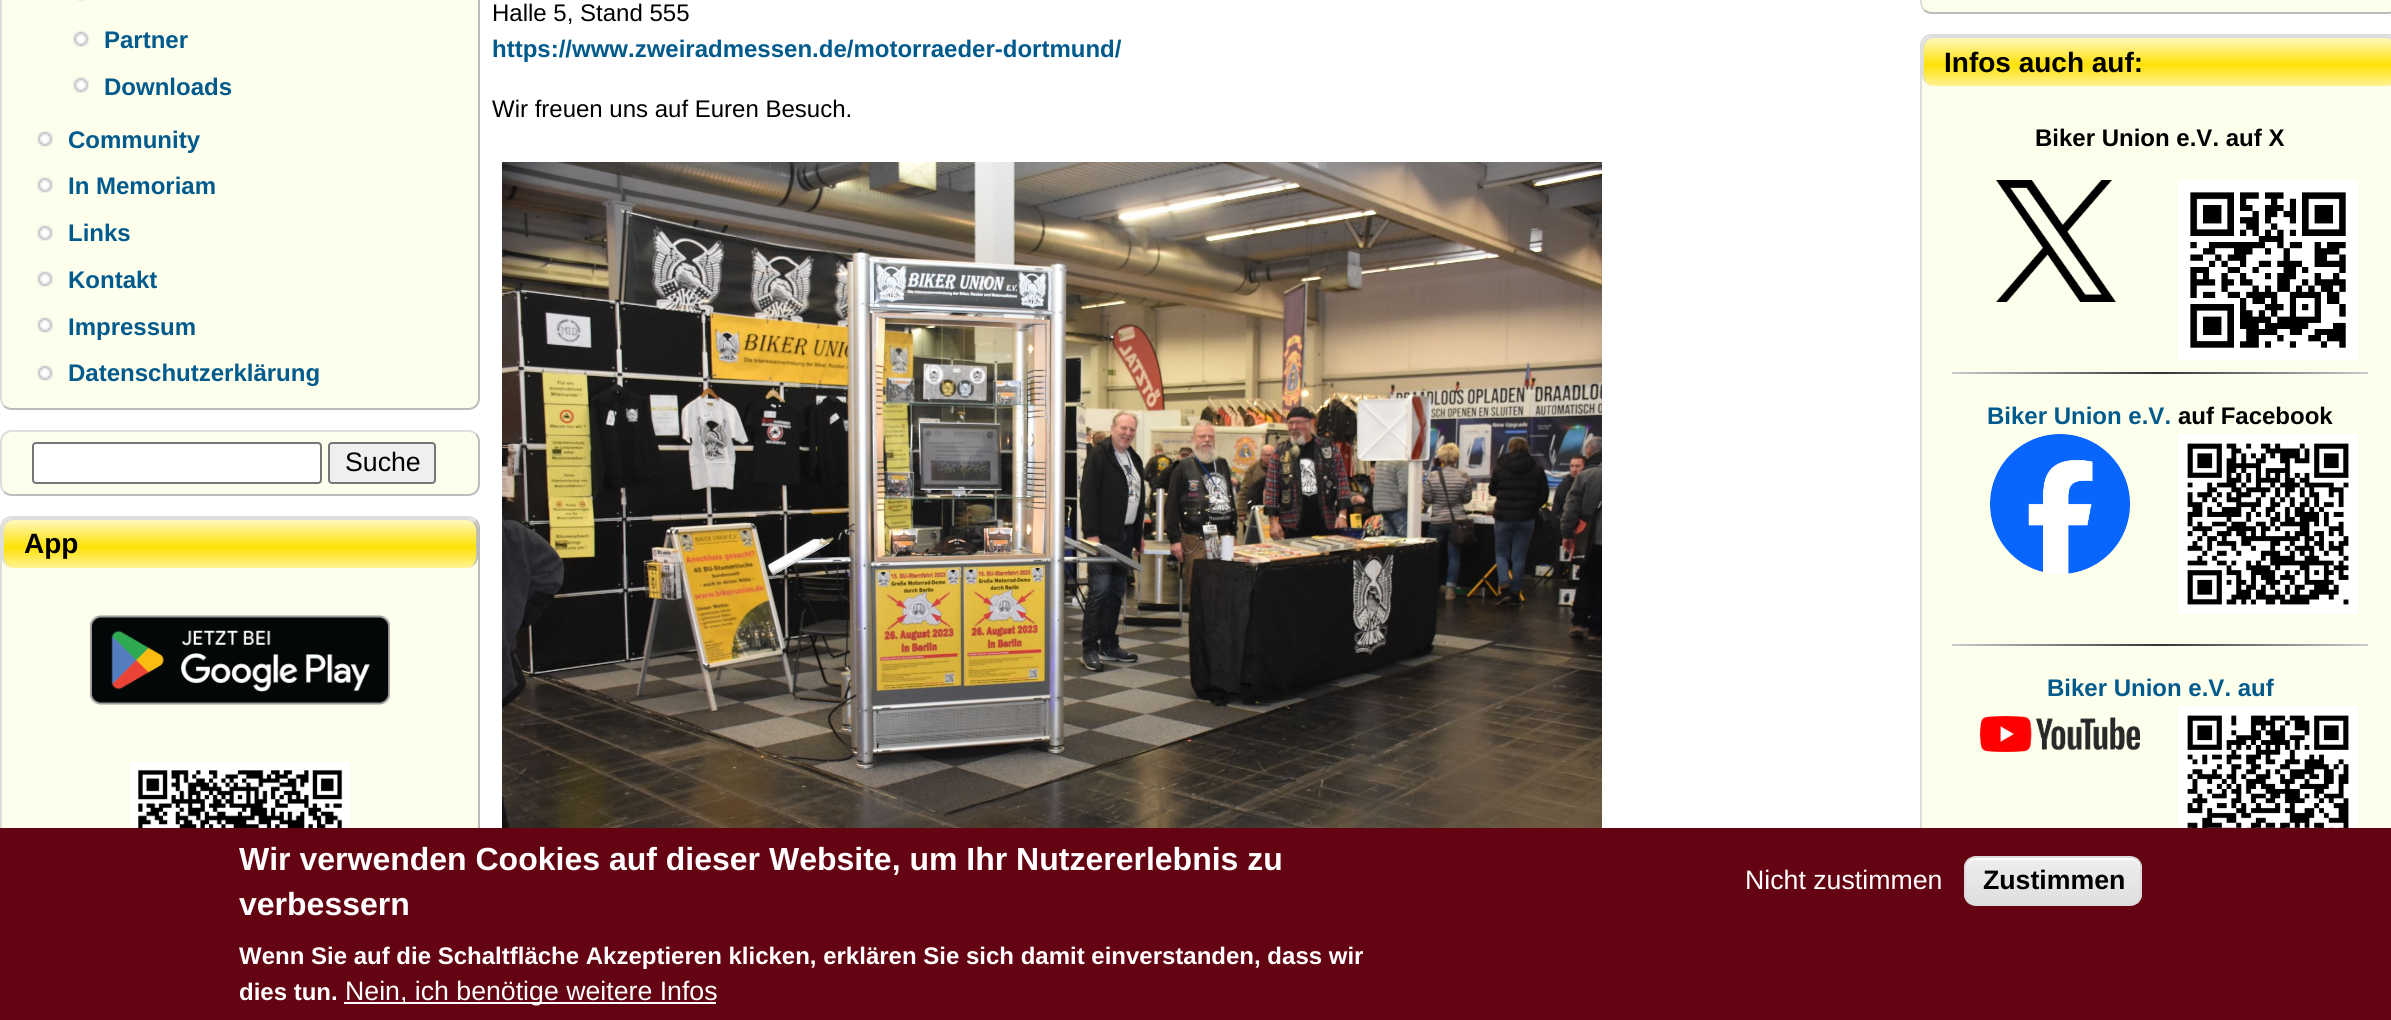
#include <cairo.h>
#include <math.h>
#include <stddef.h>

typedef struct { const char *family; double size; int italic, bold; unsigned color; } style_t;
static cairo_t *ctx;

static void ink(unsigned color) {
    cairo_set_source_rgb(ctx, (color >> 16) / 255.0, (color >> 8 & 255) / 255.0, (color & 255) / 255.0);
}

static void write(double x, double y, const char *s, const style_t *st) {
    cairo_select_font_face(ctx, st->family, st->italic ? CAIRO_FONT_SLANT_ITALIC : CAIRO_FONT_SLANT_NORMAL,
        st->bold ? CAIRO_FONT_WEIGHT_BOLD : CAIRO_FONT_WEIGHT_NORMAL);
    cairo_set_font_size(ctx, st->size);
    ink(st->color);
    cairo_move_to(ctx, x, y);
    cairo_show_text(ctx, s);
}

static void block(double x, double y, double w, double h, unsigned color) {
    ink(color);
    cairo_rectangle(ctx, x, y, w, h);
    cairo_fill(ctx);
}

static void round_path(double x, double y, double w, double h, double r) {
    cairo_new_sub_path(ctx);
    cairo_arc(ctx, x + w - r, y + h - r, r, 0, M_PI / 2);
    cairo_arc(ctx, x + r, y + h - r, r, M_PI / 2, M_PI);
    cairo_arc(ctx, x + r, y + r, r, M_PI, 1.5 * M_PI);
    cairo_arc(ctx, x + w - r, y + r, r, 1.5 * M_PI, 2 * M_PI);
    cairo_close_path(ctx);
}

static void paste(const char *path, double x, double y, double w, double h) {
    cairo_surface_t *image = cairo_image_surface_create_from_png(path);
    cairo_save(ctx);
    cairo_set_source_surface(ctx, image, x, y);
    cairo_rectangle(ctx, x, y, w, h);
    cairo_fill(ctx);
    cairo_restore(ctx);
    cairo_surface_destroy(image);
}

static const style_t s1 = {"Liberation Sans", 24, 0, 1, 0x005a8c};
static const style_t s2 = {"Liberation Sans", 26.7, 0, 0, 0x000000};
static const style_t s3 = {"Liberation Sans", 28, 0, 1, 0x000000};
static const style_t s4 = {"Liberation Sans", 24, 0, 0, 0x000000};
static const style_t s5 = {"Liberation Sans", 24, 0, 1, 0x000000};
static const style_t s6 = {"Liberation Sans", 32, 0, 1, 0xffffff};
static const style_t s7 = {"Liberation Sans", 24, 0, 1, 0xffffff};
static const style_t s8 = {"Liberation Sans", 26.7, 0, 0, 0xffffff};
static const style_t s9 = {"Liberation Sans", 26.7, 0, 1, 0x000000};

int main(void) {
    cairo_surface_t *surface = cairo_image_surface_create(CAIRO_FORMAT_RGB24, 2391, 1020);
    ctx = cairo_create(surface);
    cairo_font_options_t *options = cairo_font_options_create();
    cairo_font_options_set_hint_metrics(options, CAIRO_HINT_METRICS_OFF);
    cairo_font_options_set_hint_style(options, CAIRO_HINT_STYLE_NONE);
    cairo_set_font_options(ctx, options);
    cairo_set_miter_limit(ctx, 4);
    cairo_pattern_t *gradient;
    ink(0xffffff);
    cairo_paint(ctx);
    ink(0xfefeed);
    round_path(0, -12, 480, 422, 12);
    cairo_fill(ctx);
    cairo_new_path(ctx);
    cairo_move_to(ctx, 476, -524);
    cairo_curve_to(ctx, 478, -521.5, 479, -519, 479, -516);
    cairo_line_to(ctx, 479, 398);
    cairo_curve_to(ctx, 479, 401, 478, 403.5, 476, 406);
    cairo_curve_to(ctx, 473.5, 408, 471, 409, 468, 409);
    cairo_line_to(ctx, 12, 409);
    cairo_curve_to(ctx, 9, 409, 6.5, 408, 4, 406);
    ink(0xbbbbbb);
    cairo_stroke(ctx);
    cairo_new_path(ctx);
    cairo_move_to(ctx, 4, 406);
    cairo_curve_to(ctx, 2, 403.5, 1, 401, 1, 398);
    cairo_line_to(ctx, 1, -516);
    cairo_curve_to(ctx, 1, -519, 2, -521.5, 4, -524);
    cairo_curve_to(ctx, 6.5, -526, 9, -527, 12, -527);
    cairo_line_to(ctx, 468, -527);
    cairo_curve_to(ctx, 471, -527, 473.5, -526, 476, -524);
    ink(0xdddddd);
    cairo_stroke(ctx);
    paste("pic1.png", 76, 0, 10, 1);
    paste("pic2.png", 73, 31, 16, 16);
    write(104, 48, "Partner", &s1);
    paste("pic2.png", 73, 77, 16, 16);
    write(104, 95, "Downloads", &s1);
    paste("pic2.png", 37, 131, 16, 16);
    write(68, 148, "Community", &s1);
    paste("pic2.png", 37, 177, 16, 16);
    write(68, 194, "In Memoriam", &s1);
    paste("pic2.png", 37, 225, 16, 16);
    write(68, 241, "Links", &s1);
    paste("pic2.png", 37, 271, 16, 16);
    write(68, 288, "Kontakt", &s1);
    paste("pic2.png", 37, 317, 16, 16);
    write(68, 335, "Impressum", &s1);
    paste("pic2.png", 37, 365, 16, 16);
    write(68, 381, "Datenschutzerklärung", &s1);
    ink(0xfefeed);
    round_path(0, 430, 480, 66, 12);
    cairo_fill(ctx);
    cairo_new_path(ctx);
    cairo_move_to(ctx, 476, 434);
    cairo_curve_to(ctx, 478, 436.5, 479, 439, 479, 442);
    cairo_line_to(ctx, 479, 484);
    cairo_curve_to(ctx, 479, 487, 478, 489.5, 476, 492);
    cairo_curve_to(ctx, 473.5, 494, 471, 495, 468, 495);
    cairo_line_to(ctx, 12, 495);
    cairo_curve_to(ctx, 9, 495, 6.5, 494, 4, 492);
    ink(0xbbbbbb);
    cairo_stroke(ctx);
    cairo_new_path(ctx);
    cairo_move_to(ctx, 4, 492);
    cairo_curve_to(ctx, 2, 489.5, 1, 487, 1, 484);
    cairo_line_to(ctx, 1, 442);
    cairo_curve_to(ctx, 1, 439, 2, 436.5, 4, 434);
    cairo_curve_to(ctx, 6.5, 432, 9, 431, 12, 431);
    cairo_line_to(ctx, 468, 431);
    cairo_curve_to(ctx, 471, 431, 473.5, 432, 476, 434);
    ink(0xdddddd);
    cairo_stroke(ctx);
    ink(0xffffff);
    round_path(33, 443, 288, 40, 3);
    cairo_fill_preserve(ctx);
    ink(0x767676);
    cairo_stroke(ctx);
    ink(0xefefef);
    round_path(329, 443, 106, 40, 3);
    cairo_fill_preserve(ctx);
    ink(0x767676);
    cairo_stroke(ctx);
    write(345, 471, "Suche", &s2);
    ink(0xfefeed);
    round_path(0, 516, 480, 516, 12);
    cairo_fill(ctx);
    cairo_new_path(ctx);
    cairo_move_to(ctx, 476, 520);
    cairo_curve_to(ctx, 478, 522.5, 479, 525, 479, 528);
    cairo_line_to(ctx, 479, 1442);
    cairo_curve_to(ctx, 479, 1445, 478, 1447.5, 476, 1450);
    cairo_curve_to(ctx, 473.5, 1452, 471, 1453, 468, 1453);
    cairo_line_to(ctx, 12, 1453);
    cairo_curve_to(ctx, 9, 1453, 6.5, 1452, 4, 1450);
    ink(0xbbbbbb);
    cairo_stroke(ctx);
    cairo_new_path(ctx);
    cairo_move_to(ctx, 4, 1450);
    cairo_curve_to(ctx, 2, 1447.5, 1, 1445, 1, 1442);
    cairo_line_to(ctx, 1, 528);
    cairo_curve_to(ctx, 1, 525, 2, 522.5, 4, 520);
    cairo_curve_to(ctx, 6.5, 518, 9, 517, 12, 517);
    cairo_line_to(ctx, 468, 517);
    cairo_curve_to(ctx, 471, 517, 473.5, 518, 476, 520);
    ink(0xdddddd);
    cairo_stroke(ctx);
    paste("pic3.png", 2, 520, 476, 48);
    cairo_new_path(ctx);
    cairo_move_to(ctx, 14, 518);
    cairo_curve_to(ctx, 10, 518, 8, 519, 5, 521);
    cairo_line_to(ctx, 7, 523);
    cairo_curve_to(ctx, 8, 521, 11, 520, 14, 520);
    cairo_line_to(ctx, 466, 520);
    cairo_curve_to(ctx, 469, 520, 472, 521, 473, 523);
    cairo_line_to(ctx, 475, 521);
    cairo_curve_to(ctx, 472, 519, 470, 518, 466, 518);
    cairo_close_path(ctx);
    cairo_fill(ctx);
    ink(0xbbbbbb);
    cairo_new_path(ctx);
    cairo_move_to(ctx, 478, 556);
    cairo_line_to(ctx, 478, 530);
    cairo_curve_to(ctx, 478, 526, 477, 524, 475, 521);
    cairo_line_to(ctx, 473, 523);
    cairo_curve_to(ctx, 478, 527, 476, 538, 476, 543);
    cairo_curve_to(ctx, 476, 551, 479, 568, 466, 568);
    cairo_curve_to(ctx, 473, 568, 478, 563, 478, 556);
    cairo_close_path(ctx);
    cairo_fill(ctx);
    ink(0xdddddd);
    cairo_new_path(ctx);
    cairo_move_to(ctx, 2, 530);
    cairo_line_to(ctx, 2, 556);
    cairo_curve_to(ctx, 2, 563, 7, 568, 14, 568);
    cairo_curve_to(ctx, 1, 568, 4, 551, 4, 543);
    cairo_curve_to(ctx, 4, 538, 2, 527, 7, 523);
    cairo_line_to(ctx, 5, 521);
    cairo_curve_to(ctx, 3, 524, 2, 526, 2, 530);
    cairo_close_path(ctx);
    cairo_fill(ctx);
    write(24, 553, "App", &s3);
    paste("pic4.png", 90, 615, 300, 90);
    paste("pic5.png", 130, 762, 220, 66);
    write(492, 21, "Halle 5, Stand 555", &s4);
    write(492, 57, "https://www.zweiradmessen.de/motorraeder-dortmund/", &s1);
    write(492, 117, "Wir freuen uns auf Euren Besuch.", &s4);
    paste("pic6.png", 502, 162, 1100, 666);
    ink(0xfefeed);
    round_path(1920, -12, 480, 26, 12);
    cairo_fill(ctx);
    cairo_new_path(ctx);
    cairo_move_to(ctx, 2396, -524);
    cairo_curve_to(ctx, 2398, -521.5, 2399, -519, 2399, -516);
    cairo_line_to(ctx, 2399, 2);
    cairo_curve_to(ctx, 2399, 5, 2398, 7.5, 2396, 10);
    cairo_curve_to(ctx, 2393.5, 12, 2391, 13, 2388, 13);
    cairo_line_to(ctx, 1932, 13);
    cairo_curve_to(ctx, 1929, 13, 1926.5, 12, 1924, 10);
    ink(0xbbbbbb);
    cairo_stroke(ctx);
    cairo_new_path(ctx);
    cairo_move_to(ctx, 1924, 10);
    cairo_curve_to(ctx, 1922, 7.5, 1921, 5, 1921, 2);
    cairo_line_to(ctx, 1921, -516);
    cairo_curve_to(ctx, 1921, -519, 1922, -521.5, 1924, -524);
    cairo_curve_to(ctx, 1926.5, -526, 1929, -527, 1932, -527);
    cairo_line_to(ctx, 2388, -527);
    cairo_curve_to(ctx, 2391, -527, 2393.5, -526, 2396, -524);
    ink(0xdddddd);
    cairo_stroke(ctx);
    ink(0xfefeed);
    round_path(1920, 34, 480, 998, 12);
    cairo_fill(ctx);
    cairo_new_path(ctx);
    cairo_move_to(ctx, 1924, 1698);
    cairo_curve_to(ctx, 1922, 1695.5, 1921, 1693, 1921, 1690);
    cairo_line_to(ctx, 1921, 46);
    cairo_curve_to(ctx, 1921, 43, 1922, 40.5, 1924, 38);
    cairo_curve_to(ctx, 1926.5, 36, 1929, 35, 1932, 35);
    cairo_line_to(ctx, 2388, 35);
    cairo_curve_to(ctx, 2391, 35, 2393.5, 36, 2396, 38);
    ink(0xdddddd);
    cairo_stroke(ctx);
    paste("pic7.png", 1922, 38, 469, 48);
    cairo_new_path(ctx);
    cairo_move_to(ctx, 1934, 36);
    cairo_curve_to(ctx, 1930, 36, 1928, 37, 1925, 39);
    cairo_line_to(ctx, 1927, 41);
    cairo_curve_to(ctx, 1928, 39, 1931, 38, 1934, 38);
    cairo_line_to(ctx, 2386, 38);
    cairo_curve_to(ctx, 2389, 38, 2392, 39, 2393, 41);
    cairo_line_to(ctx, 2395, 39);
    cairo_curve_to(ctx, 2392, 37, 2390, 36, 2386, 36);
    cairo_close_path(ctx);
    cairo_fill(ctx);
    ink(0xbbbbbb);
    cairo_new_path(ctx);
    cairo_move_to(ctx, 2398, 74);
    cairo_line_to(ctx, 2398, 48);
    cairo_curve_to(ctx, 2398, 44, 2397, 42, 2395, 39);
    cairo_line_to(ctx, 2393, 41);
    cairo_curve_to(ctx, 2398, 45, 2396, 56, 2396, 61);
    cairo_curve_to(ctx, 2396, 69, 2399, 86, 2386, 86);
    cairo_curve_to(ctx, 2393, 86, 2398, 81, 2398, 74);
    cairo_close_path(ctx);
    cairo_fill(ctx);
    ink(0xdddddd);
    cairo_new_path(ctx);
    cairo_move_to(ctx, 1922, 48);
    cairo_line_to(ctx, 1922, 74);
    cairo_curve_to(ctx, 1922, 81, 1927, 86, 1934, 86);
    cairo_curve_to(ctx, 1921, 86, 1924, 69, 1924, 61);
    cairo_curve_to(ctx, 1924, 56, 1922, 45, 1927, 41);
    cairo_line_to(ctx, 1925, 39);
    cairo_curve_to(ctx, 1923, 42, 1922, 44, 1922, 48);
    cairo_close_path(ctx);
    cairo_fill(ctx);
    write(1944, 72, "Infos auch auf:", &s3);
    write(2035, 146, "Biker Union e.V. auf X", &s5);
    paste("pic8.png", 1996, 180, 120, 122);
    paste("pic9.png", 2178, 180, 180, 180);
    gradient = cairo_pattern_create_linear(1952, 373, 2368, 373);
    cairo_pattern_add_color_stop_rgba(gradient, 0, 0.8, 0.8, 0.8, 1);
    cairo_pattern_add_color_stop_rgba(gradient, 0.5, 0.2, 0.2, 0.2, 1);
    cairo_pattern_add_color_stop_rgba(gradient, 1, 0.8, 0.8, 0.8, 1);
    cairo_set_source(ctx, gradient);
    cairo_pattern_destroy(gradient);
    cairo_rectangle(ctx, 1952, 372, 416, 2);
    cairo_fill(ctx);
    write(1987, 424, "Biker Union e.V.", &s1);
    write(2178, 424, "auf Facebook", &s5);
    paste("pic10.png", 1990, 434, 140, 140);
    paste("pic11.png", 2178, 434, 180, 180);
    gradient = cairo_pattern_create_linear(1952, 645, 2368, 645);
    cairo_pattern_add_color_stop_rgba(gradient, 0, 0.8, 0.8, 0.8, 1);
    cairo_pattern_add_color_stop_rgba(gradient, 0.5, 0.2, 0.2, 0.2, 1);
    cairo_pattern_add_color_stop_rgba(gradient, 1, 0.8, 0.8, 0.8, 1);
    cairo_set_source(ctx, gradient);
    cairo_pattern_destroy(gradient);
    cairo_rectangle(ctx, 1952, 644, 416, 2);
    cairo_fill(ctx);
    write(2047, 696, "Biker Union e.V. auf", &s1);
    paste("pic12.png", 1980, 716, 160, 36);
    paste("pic13.png", 2178, 706, 180, 122);
    block(0, 828, 2391, 192, 0x640312);
    write(239, 870, "Wir verwenden Cookies auf dieser Website, um Ihr Nutzererlebnis zu", &s6);
    write(239, 915, "verbessern", &s6);
    write(239, 964, "Wenn Sie auf die Schaltfläche Akzeptieren klicken, erklären Sie sich damit einverstanden, dass wir", &s7);
    write(239, 1000, "dies tun.", &s7);
    block(344, 1002, 372, 2, 0xffffff);
    write(345, 1000, "Nein, ich benötige weitere Infos", &s8);
    write(1745, 889, "Nicht zustimmen", &s8);
    cairo_save(ctx);
    round_path(1964, 856, 178, 50, 12);
    cairo_clip(ctx);
    gradient = cairo_pattern_create_linear(2053, 858, 2053, 904);
    cairo_pattern_add_color_stop_rgba(gradient, 0.05, 0.929, 0.929, 0.929, 1);
    cairo_pattern_add_color_stop_rgba(gradient, 1, 0.875, 0.875, 0.875, 1);
    cairo_set_source(ctx, gradient);
    cairo_pattern_destroy(gradient);
    cairo_rectangle(ctx, 1964, 858, 178, 46);
    cairo_fill(ctx);
    cairo_restore(ctx);
    cairo_new_path(ctx);
    cairo_move_to(ctx, 1976, 860);
    cairo_line_to(ctx, 2130, 860);
    cairo_curve_to(ctx, 2136, 860, 2140, 864, 2140, 870);
    cairo_line_to(ctx, 2140, 868);
    cairo_curve_to(ctx, 2140, 862, 2136, 858, 2130, 858);
    cairo_line_to(ctx, 1976, 858);
    cairo_curve_to(ctx, 1970, 858, 1966, 862, 1966, 868);
    cairo_line_to(ctx, 1966, 870);
    cairo_curve_to(ctx, 1966, 864, 1970, 860, 1976, 860);
    cairo_close_path(ctx);
    cairo_fill(ctx);
    round_path(1965, 857, 176, 48, 11);
    ink(0xdcdcdc);
    cairo_stroke(ctx);
    write(1983, 889, "Zustimmen", &s9);
    cairo_surface_write_to_png(surface, "screenshot.png");
    cairo_font_options_destroy(options);
    cairo_destroy(ctx);
    cairo_surface_destroy(surface);
    return 0;
}
